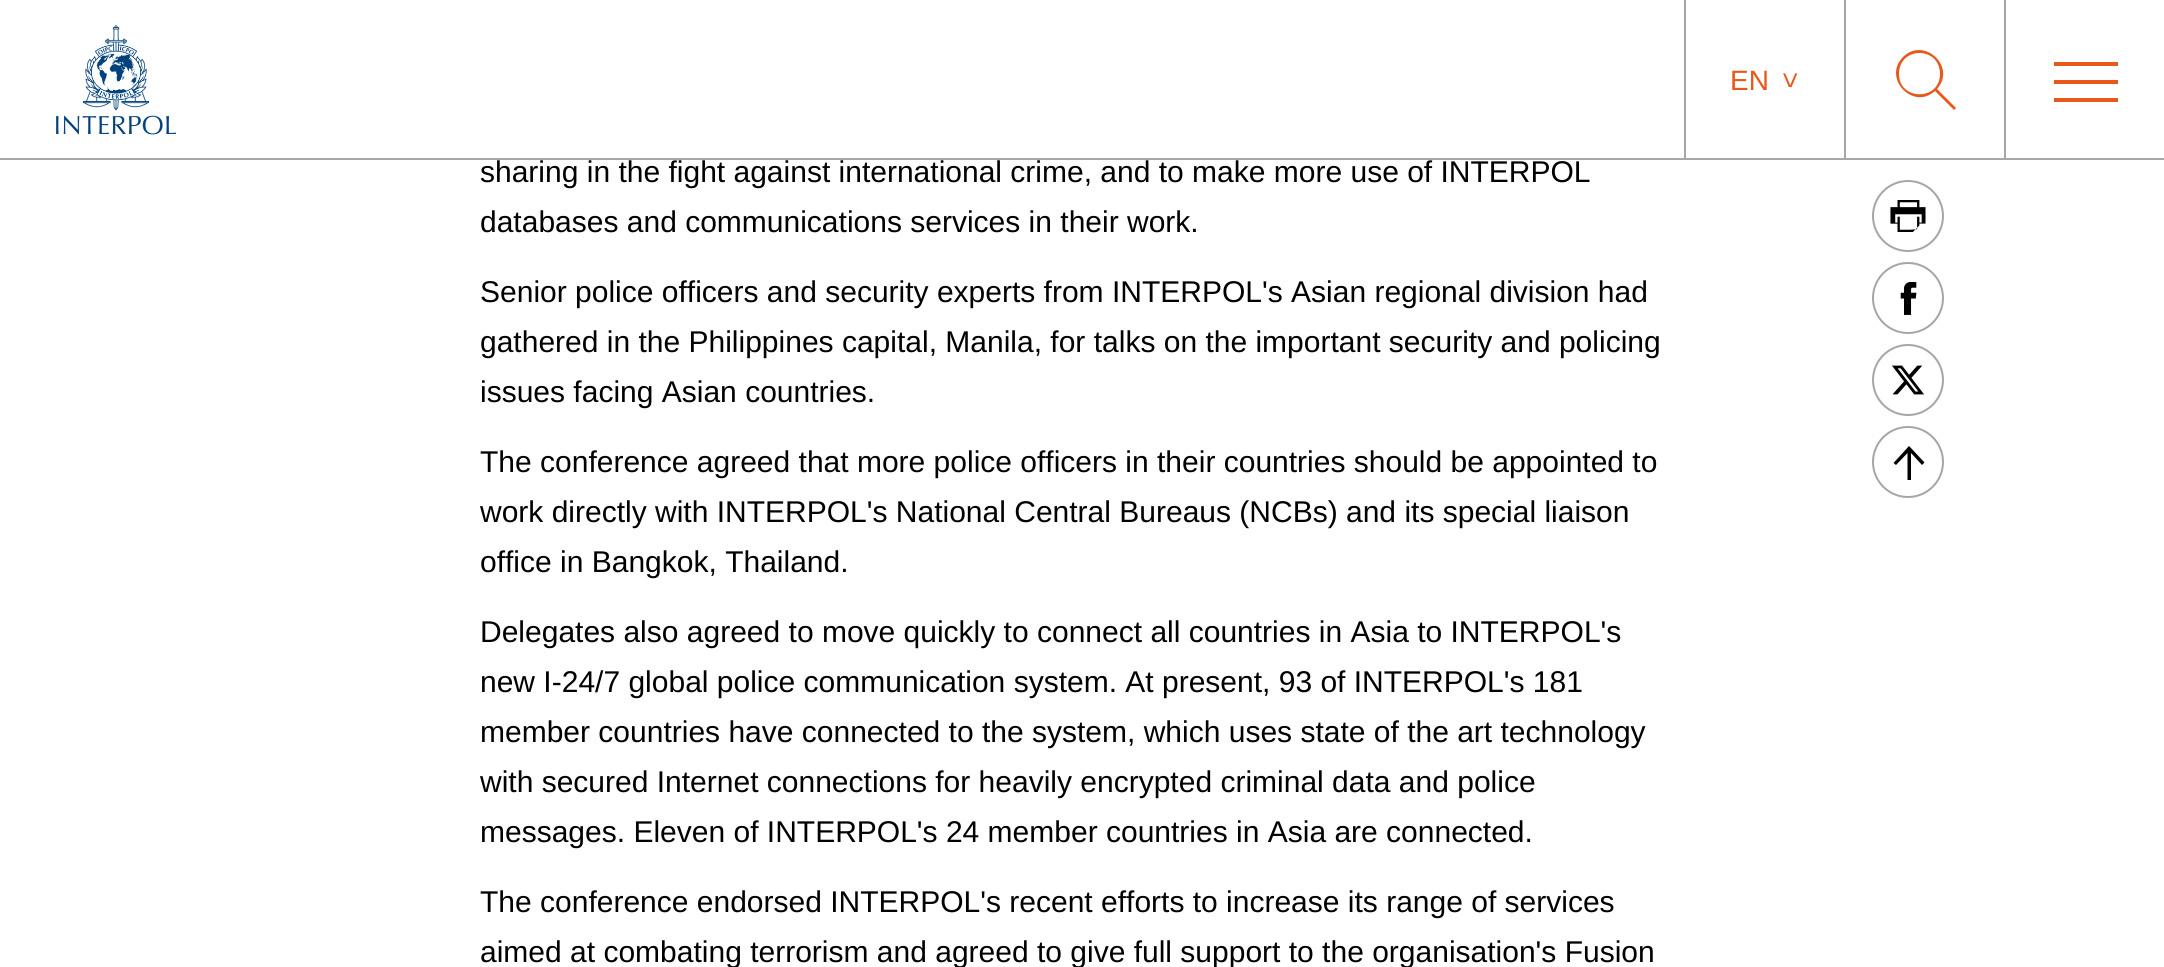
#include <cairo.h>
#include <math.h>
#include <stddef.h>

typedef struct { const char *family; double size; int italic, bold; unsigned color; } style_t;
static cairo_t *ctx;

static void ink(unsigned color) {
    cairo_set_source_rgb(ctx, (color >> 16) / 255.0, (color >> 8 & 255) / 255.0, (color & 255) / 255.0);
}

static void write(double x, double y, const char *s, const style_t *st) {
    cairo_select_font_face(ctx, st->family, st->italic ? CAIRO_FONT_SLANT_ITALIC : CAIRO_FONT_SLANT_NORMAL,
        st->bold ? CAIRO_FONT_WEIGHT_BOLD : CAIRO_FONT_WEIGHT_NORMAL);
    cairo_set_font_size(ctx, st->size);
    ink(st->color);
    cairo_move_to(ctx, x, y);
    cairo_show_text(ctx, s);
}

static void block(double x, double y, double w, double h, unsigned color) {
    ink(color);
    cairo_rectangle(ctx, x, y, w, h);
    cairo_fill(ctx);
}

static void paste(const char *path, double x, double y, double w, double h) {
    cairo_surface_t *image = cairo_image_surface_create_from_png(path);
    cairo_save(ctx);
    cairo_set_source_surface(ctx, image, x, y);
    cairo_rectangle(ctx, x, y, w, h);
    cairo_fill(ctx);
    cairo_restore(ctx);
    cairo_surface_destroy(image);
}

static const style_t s1 = {"Liberation Sans", 28, 0, 0, 0xe7581a};
static const style_t s2 = {"Liberation Sans", 30, 0, 0, 0x000000};

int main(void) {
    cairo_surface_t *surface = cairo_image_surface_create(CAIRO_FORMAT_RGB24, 2164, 967);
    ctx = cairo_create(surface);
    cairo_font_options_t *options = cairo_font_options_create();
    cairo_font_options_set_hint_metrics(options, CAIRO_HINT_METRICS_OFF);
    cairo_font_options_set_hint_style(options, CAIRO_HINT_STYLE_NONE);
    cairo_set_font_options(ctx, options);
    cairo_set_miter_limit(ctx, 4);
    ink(0xffffff);
    cairo_paint(ctx);
    block(0, 158, 2164, 2, 0xa6a6a6);
    paste("pic1.png", 56, 25, 120, 110);
    block(1684, 0, 2, 160, 0xa6a6a6);
    write(1730, 90, "EN", &s1);
    cairo_save(ctx);
    cairo_translate(ctx, 1781, 72);
    cairo_rotate(ctx, 90 * M_PI / 180);
    write(0, 0, ">", &s1);
    cairo_restore(ctx);
    block(1844, 0, 2, 160, 0xa6a6a6);
    ink(0xe7581a);
    cairo_new_path(ctx);
    cairo_move_to(ctx, 1940, 74);
    cairo_curve_to(ctx, 1940, 46, 1899, 46, 1899, 74);
    cairo_curve_to(ctx, 1899, 101, 1940, 101, 1940, 74);
    cairo_close_path(ctx);
    cairo_move_to(ctx, 1956, 108);
    cairo_line_to(ctx, 1954, 110);
    cairo_line_to(ctx, 1935, 91);
    cairo_curve_to(ctx, 1913, 111, 1882, 78, 1903, 57);
    cairo_curve_to(ctx, 1924, 36, 1957, 67, 1937, 89);
    cairo_close_path(ctx);
    cairo_fill(ctx);
    block(2004, 0, 2, 160, 0xa6a6a6);
    block(2054, 80, 64, 4, 0xe7581a);
    block(2054, 62, 64, 4, 0xe7581a);
    block(2054, 98, 64, 4, 0xe7581a);
    write(480, 182, "sharing in the fight against international crime, and to make more use of INTERPOL", &s2);
    write(480, 232, "databases and communications services in their work.", &s2);
    write(480, 302, "Senior police officers and security experts from INTERPOL's Asian regional division had", &s2);
    write(480, 352, "gathered in the Philippines capital, Manila, for talks on the important security and policing", &s2);
    write(480, 402, "issues facing Asian countries.", &s2);
    write(480, 472, "The conference agreed that more police officers in their countries should be appointed to", &s2);
    write(480, 522, "work directly with INTERPOL's National Central Bureaus (NCBs) and its special liaison", &s2);
    write(480, 572, "office in Bangkok, Thailand.", &s2);
    write(480, 642, "Delegates also agreed to move quickly to connect all countries in Asia to INTERPOL's", &s2);
    write(480, 692, "new I-24/7 global police communication system. At present, 93 of INTERPOL's 181", &s2);
    write(480, 742, "member countries have connected to the system, which uses state of the art technology", &s2);
    write(480, 792, "with secured Internet connections for heavily encrypted criminal data and police", &s2);
    write(480, 842, "messages. Eleven of INTERPOL's 24 member countries in Asia are connected.", &s2);
    write(480, 912, "The conference endorsed INTERPOL's recent efforts to increase its range of services", &s2);
    write(480, 962, "aimed at combating terrorism and agreed to give full support to the organisation's Fusion", &s2);
    cairo_new_path(ctx);
    cairo_arc(ctx, 1908, 216, 35, 0, 2 * M_PI);
    ink(0xa6a6a6);
    cairo_stroke(ctx);
    paste("pic2.png", 1890, 200, 36, 32);
    cairo_arc(ctx, 1908, 298, 35, 0, 2 * M_PI);
    cairo_stroke(ctx);
    paste("pic3.png", 1900, 282, 17, 33);
    cairo_arc(ctx, 1908, 380, 35, 0, 2 * M_PI);
    cairo_stroke(ctx);
    paste("pic4.png", 1892, 365, 32, 30);
    cairo_arc(ctx, 1908, 462, 35, 0, 2 * M_PI);
    cairo_stroke(ctx);
    ink(0x000000);
    cairo_new_path(ctx);
    cairo_move_to(ctx, 1907.5, 480);
    cairo_line_to(ctx, 1907.5, 453);
    cairo_line_to(ctx, 1896, 465);
    cairo_line_to(ctx, 1893.5, 463);
    cairo_line_to(ctx, 1909, 446);
    cairo_line_to(ctx, 1924.5, 462.5);
    cairo_line_to(ctx, 1922, 465);
    cairo_line_to(ctx, 1911, 453);
    cairo_line_to(ctx, 1911, 480);
    cairo_fill(ctx);
    cairo_surface_write_to_png(surface, "screenshot.png");
    cairo_font_options_destroy(options);
    cairo_destroy(ctx);
    cairo_surface_destroy(surface);
    return 0;
}
